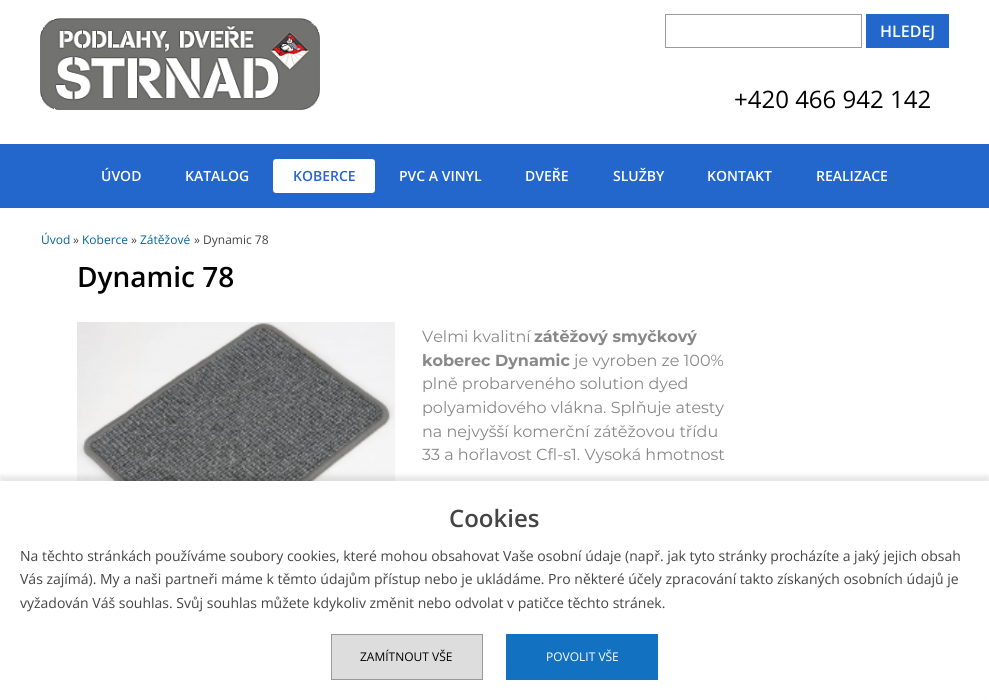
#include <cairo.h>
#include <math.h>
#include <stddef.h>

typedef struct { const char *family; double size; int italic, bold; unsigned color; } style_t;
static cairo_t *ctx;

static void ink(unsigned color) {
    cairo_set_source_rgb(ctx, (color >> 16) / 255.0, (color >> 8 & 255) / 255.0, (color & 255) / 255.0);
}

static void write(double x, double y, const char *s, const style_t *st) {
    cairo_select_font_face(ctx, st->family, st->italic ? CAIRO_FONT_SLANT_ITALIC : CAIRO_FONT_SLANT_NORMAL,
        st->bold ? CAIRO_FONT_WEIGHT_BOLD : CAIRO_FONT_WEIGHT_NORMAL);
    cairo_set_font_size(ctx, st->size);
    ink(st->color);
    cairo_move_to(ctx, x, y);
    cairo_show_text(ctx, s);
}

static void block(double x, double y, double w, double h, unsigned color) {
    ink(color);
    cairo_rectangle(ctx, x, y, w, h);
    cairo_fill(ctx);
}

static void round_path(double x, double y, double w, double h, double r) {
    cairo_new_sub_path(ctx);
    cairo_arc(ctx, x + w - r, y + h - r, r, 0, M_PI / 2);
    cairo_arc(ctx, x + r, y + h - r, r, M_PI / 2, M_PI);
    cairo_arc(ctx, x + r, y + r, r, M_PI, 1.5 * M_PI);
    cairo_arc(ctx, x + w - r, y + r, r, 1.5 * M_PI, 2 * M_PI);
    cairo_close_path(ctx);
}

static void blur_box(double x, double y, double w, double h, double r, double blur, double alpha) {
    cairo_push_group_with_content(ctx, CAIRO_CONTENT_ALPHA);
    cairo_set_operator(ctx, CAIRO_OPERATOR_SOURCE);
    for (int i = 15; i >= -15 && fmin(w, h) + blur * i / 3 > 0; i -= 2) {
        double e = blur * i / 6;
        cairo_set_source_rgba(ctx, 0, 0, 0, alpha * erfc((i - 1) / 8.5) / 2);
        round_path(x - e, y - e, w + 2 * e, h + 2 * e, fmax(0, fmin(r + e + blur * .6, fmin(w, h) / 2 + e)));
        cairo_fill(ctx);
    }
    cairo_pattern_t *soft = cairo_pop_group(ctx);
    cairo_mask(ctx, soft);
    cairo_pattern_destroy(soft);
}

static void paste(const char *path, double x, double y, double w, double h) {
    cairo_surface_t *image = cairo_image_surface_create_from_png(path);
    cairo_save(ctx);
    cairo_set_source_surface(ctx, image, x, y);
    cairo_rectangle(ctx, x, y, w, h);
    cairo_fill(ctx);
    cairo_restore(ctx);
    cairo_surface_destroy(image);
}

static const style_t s1 = {"Open Sans SemiBold", 16, 0, 0, 0xffffff};
static const style_t s2 = {"Open Sans", 24, 0, 0, 0x000000};
static const style_t s3 = {"Open Sans SemiBold", 14, 0, 0, 0xffffff};
static const style_t s4 = {"Open Sans SemiBold", 14, 0, 0, 0x2467cc};
static const style_t s5 = {"Open Sans", 12, 0, 0, 0x03649e};
static const style_t s6 = {"Open Sans", 12, 0, 0, 0x444444};
static const style_t s7 = {"Open Sans SemiBold", 28, 0, 0, 0x000000};
static const style_t s8 = {"Montserrat", 16, 0, 0, 0x888888};
static const style_t s9 = {"Montserrat", 16, 0, 1, 0x888888};
static const style_t s10 = {"Open Sans SemiBold", 24, 0, 0, 0x444444};
static const style_t s11 = {"Open Sans", 14, 0, 0, 0x444444};
static const style_t s12 = {"Open Sans", 12, 0, 0, 0x000000};
static const style_t s13 = {"Open Sans", 12, 0, 0, 0xffffff};

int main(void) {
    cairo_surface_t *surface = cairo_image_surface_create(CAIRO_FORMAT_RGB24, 989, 700);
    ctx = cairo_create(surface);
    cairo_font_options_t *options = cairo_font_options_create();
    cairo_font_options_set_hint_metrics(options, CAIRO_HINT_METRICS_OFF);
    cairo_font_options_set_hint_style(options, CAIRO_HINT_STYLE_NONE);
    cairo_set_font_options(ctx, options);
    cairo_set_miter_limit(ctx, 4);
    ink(0xffffff);
    cairo_paint(ctx);
    paste("pic1.png", 40, 18, 280, 92);
    cairo_rectangle(ctx, 665.5, 14.5, 196, 33);
    ink(0x999b9e);
    cairo_set_line_width(ctx, 1);
    cairo_stroke(ctx);
    block(866, 14, 83, 34, 0x2467cc);
    write(880, 37, "HLEDEJ", &s1);
    write(734, 108, "+420 466 942 142", &s2);
    block(0, 144, 989, 64, 0x2467cc);
    write(101, 181, "ÚVOD", &s3);
    write(185, 181, "KATALOG", &s3);
    round_path(273, 159, 102, 34, 3);
    cairo_fill(ctx);
    write(293, 181, "KOBERCE", &s4);
    write(399, 181, "PVC A VINYL", &s3);
    write(525, 181, "DVEŘE", &s3);
    write(613, 181, "SLUŽBY", &s3);
    write(707, 181, "KONTAKT", &s3);
    write(816, 181, "REALIZACE", &s3);
    write(41, 244, "Úvod", &s5);
    write(73, 244, "»", &s6);
    write(82, 244, "Koberce", &s5);
    write(131, 244, "»", &s6);
    write(140, 244, "Zátěžové", &s5);
    write(194, 244, "» Dynamic 78", &s6);
    write(77, 287, "Dynamic 78", &s7);
    paste("pic2.png", 77, 322, 318, 159);
    write(422, 342, "Velmi kvalitní", &s8);
    write(534, 342, "zátěžový smyčkový", &s9);
    write(422, 366, "koberec Dynamic", &s9);
    write(574, 366, "je vyroben ze 100%", &s8);
    write(422, 389, "plně probarveného solution dyed", &s8);
    write(422, 413, "polyamidového vlákna. Splňuje atesty", &s8);
    write(422, 437, "na nejvyšší komerční zátěžovou třídu", &s8);
    write(422, 460, "33 a hořlavost Cfl-s1. Vysoká hmotnost", &s8);
    ink(0x000000);
    blur_box(0, 476, 989, 219, 0, 2.5, 0.1);
    block(0, 481, 989, 217, 0xffffff);
    write(449, 527, "Cookies", &s10);
    write(20, 561, "Na těchto stránkách používáme soubory cookies, které mohou obsahovat Vaše osobní údaje (např. jak tyto stránky procházíte a jaký jejich obsah", &s11);
    write(20, 584, "Vás zajímá). My a naši partneři máme k těmto údajům přístup nebo je ukládáme. Pro některé účely zpracování takto získaných osobních údajů je", &s11);
    write(20, 608, "vyžadován Váš souhlas. Svůj souhlas můžete kdykoliv změnit nebo odvolat v patičce těchto stránek.", &s11);
    ink(0xdddddd);
    cairo_rectangle(ctx, 331.5, 634.5, 151, 45);
    cairo_fill_preserve(ctx);
    ink(0x999999);
    cairo_stroke(ctx);
    write(360, 661, "ZAMÍTNOUT VŠE", &s12);
    block(506, 634, 152, 46, 0x1371c2);
    write(546, 661, "POVOLIT VŠE", &s13);
    cairo_surface_write_to_png(surface, "screenshot.png");
    cairo_font_options_destroy(options);
    cairo_destroy(ctx);
    cairo_surface_destroy(surface);
    return 0;
}
